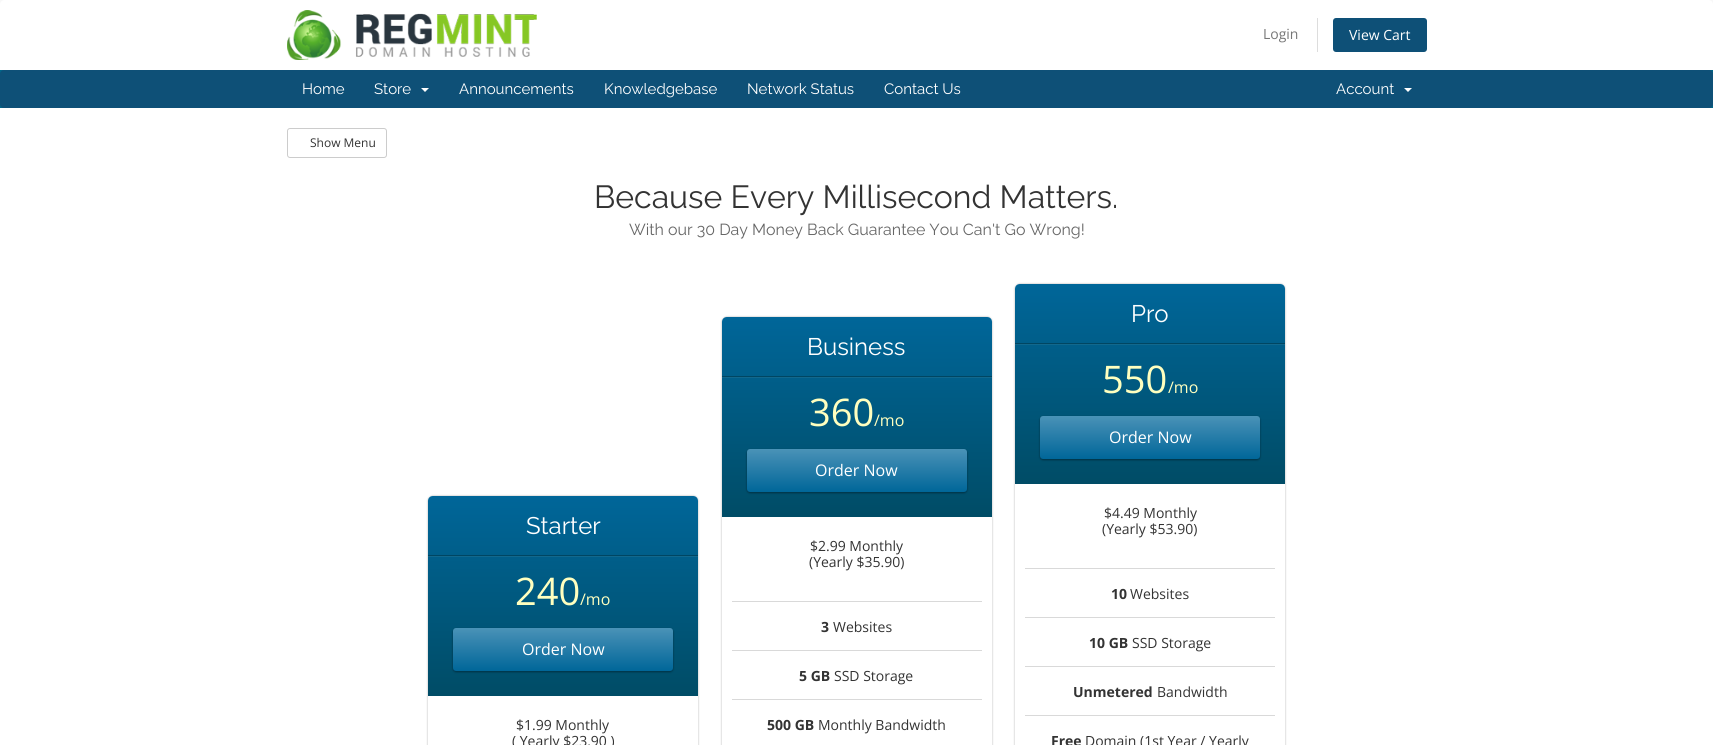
#include <cairo.h>
#include <math.h>
#include <stddef.h>

typedef struct { const char *family; double size; int italic, bold; unsigned color; } style_t;
static cairo_t *ctx;

static void ink(unsigned color) {
    cairo_set_source_rgb(ctx, (color >> 16) / 255.0, (color >> 8 & 255) / 255.0, (color & 255) / 255.0);
}

static void write(double x, double y, const char *s, const style_t *st) {
    cairo_select_font_face(ctx, st->family, st->italic ? CAIRO_FONT_SLANT_ITALIC : CAIRO_FONT_SLANT_NORMAL,
        st->bold ? CAIRO_FONT_WEIGHT_BOLD : CAIRO_FONT_WEIGHT_NORMAL);
    cairo_set_font_size(ctx, st->size);
    ink(st->color);
    cairo_move_to(ctx, x, y);
    cairo_show_text(ctx, s);
}

static void block(double x, double y, double w, double h, unsigned color) {
    ink(color);
    cairo_rectangle(ctx, x, y, w, h);
    cairo_fill(ctx);
}

static void round_path(double x, double y, double w, double h, double r) {
    cairo_new_sub_path(ctx);
    cairo_arc(ctx, x + w - r, y + h - r, r, 0, M_PI / 2);
    cairo_arc(ctx, x + r, y + h - r, r, M_PI / 2, M_PI);
    cairo_arc(ctx, x + r, y + r, r, M_PI, 1.5 * M_PI);
    cairo_arc(ctx, x + w - r, y + r, r, 1.5 * M_PI, 2 * M_PI);
    cairo_close_path(ctx);
}

static void blur_box(double x, double y, double w, double h, double r, double blur, double alpha) {
    cairo_push_group_with_content(ctx, CAIRO_CONTENT_ALPHA);
    cairo_set_operator(ctx, CAIRO_OPERATOR_SOURCE);
    for (int i = 15; i >= -15 && fmin(w, h) + blur * i / 3 > 0; i -= 2) {
        double e = blur * i / 6;
        cairo_set_source_rgba(ctx, 0, 0, 0, alpha * erfc((i - 1) / 8.5) / 2);
        round_path(x - e, y - e, w + 2 * e, h + 2 * e, fmax(0, fmin(r + e + blur * .6, fmin(w, h) / 2 + e)));
        cairo_fill(ctx);
    }
    cairo_pattern_t *soft = cairo_pop_group(ctx);
    cairo_mask(ctx, soft);
    cairo_pattern_destroy(soft);
}

static void paste(const char *path, double x, double y, double w, double h) {
    cairo_surface_t *image = cairo_image_surface_create_from_png(path);
    cairo_save(ctx);
    cairo_set_source_surface(ctx, image, x, y);
    cairo_rectangle(ctx, x, y, w, h);
    cairo_fill(ctx);
    cairo_restore(ctx);
    cairo_surface_destroy(image);
}

static const style_t s1 = {"Open Sans", 14, 0, 0, 0x777777};
static const style_t s2 = {"Open Sans", 14, 0, 0, 0xffffff};
static const style_t s3 = {"Raleway", 15, 0, 0, 0xffffff};
static const style_t s4 = {"Open Sans", 12, 0, 0, 0x333333};
static const style_t s5 = {"Raleway", 32, 0, 0, 0x333333};
static const style_t s6 = {"Raleway", 16, 0, 0, 0x666666};
static const style_t s7 = {"Raleway", 24, 0, 0, 0xffffff};
static const style_t s8 = {"Open Sans", 38, 0, 0, 0xffffbf};
static const style_t s9 = {"Open Sans", 16, 0, 0, 0xffffbf};
static const style_t s10 = {"Open Sans", 16, 0, 0, 0xffffff};
static const style_t s11 = {"Open Sans", 14, 0, 0, 0x333333};
static const style_t s12 = {"Open Sans", 14, 0, 1, 0x333333};

int main(void) {
    cairo_surface_t *surface = cairo_image_surface_create(CAIRO_FORMAT_RGB24, 1713, 745);
    ctx = cairo_create(surface);
    cairo_font_options_t *options = cairo_font_options_create();
    cairo_font_options_set_hint_metrics(options, CAIRO_HINT_METRICS_OFF);
    cairo_font_options_set_hint_style(options, CAIRO_HINT_STYLE_NONE);
    cairo_set_font_options(ctx, options);
    cairo_set_miter_limit(ctx, 4);
    cairo_pattern_t *gradient;
    ink(0xf8f8f8);
    cairo_paint(ctx);
    ink(0xffffff);
    cairo_new_path(ctx);
    cairo_move_to(ctx, 5, 0);
    cairo_line_to(ctx, 1708, 0);
    cairo_curve_to(ctx, 1711, 0, 1713, 2, 1713, 5);
    cairo_line_to(ctx, 1713, 70);
    cairo_line_to(ctx, 0, 70);
    cairo_line_to(ctx, 0, 5);
    cairo_curve_to(ctx, 0, 2, 2, 0, 5, 0);
    cairo_close_path(ctx);
    cairo_fill(ctx);
    paste("pic1.png", 287, 10, 250, 50);
    write(1263, 39, "Login", &s1);
    block(1317, 18, 1, 34, 0xdddddd);
    ink(0x0e5077);
    round_path(1333, 18, 94, 34, 3);
    cairo_fill(ctx);
    write(1349, 40, "View Cart", &s2);
    block(0, 70, 1713, 38, 0x006687);
    ink(0x0e5077);
    round_path(0, 70, 1713, 38, 4);
    cairo_fill(ctx);
    write(302, 94, "Home", &s3);
    write(374, 94, "Store", &s3);
    cairo_new_path(ctx);
    cairo_move_to(ctx, 421, 88);
    cairo_line_to(ctx, 429, 88);
    cairo_line_to(ctx, 425, 92);
    cairo_close_path(ctx);
    cairo_fill(ctx);
    write(459, 94, "Announcements", &s3);
    write(604, 94, "Knowledgebase", &s3);
    write(747, 94, "Network Status", &s3);
    write(884, 94, "Contact Us", &s3);
    write(1336, 94, "Account", &s3);
    cairo_new_path(ctx);
    cairo_move_to(ctx, 1404, 88);
    cairo_line_to(ctx, 1412, 88);
    cairo_line_to(ctx, 1408, 92);
    cairo_close_path(ctx);
    cairo_fill(ctx);
    block(0, 108, 1713, 637, 0xffffff);
    round_path(287.5, 128.5, 99, 29, 2.5);
    ink(0xcccccc);
    cairo_set_line_width(ctx, 1);
    cairo_stroke(ctx);
    write(310, 147, "Show Menu", &s4);
    write(594, 208, "Because Every Millisecond Matters.", &s5);
    write(629, 235, "With our 30 Day Money Back Guarantee You Can't Go Wrong!", &s6);
    ink(0x000000);
    blur_box(428, 496, 270, 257, 5, 1, 0.3);
    ink(0xffffff);
    round_path(428, 496, 270, 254, 5);
    cairo_fill(ctx);
    gradient = cairo_pattern_create_linear(563, 496, 563, 696);
    cairo_pattern_add_color_stop_rgba(gradient, 0, 0, 0.4, 0.6, 1);
    cairo_pattern_add_color_stop_rgba(gradient, 1, 0, 0.298, 0.4, 1);
    cairo_set_source(ctx, gradient);
    cairo_pattern_destroy(gradient);
    cairo_new_path(ctx);
    cairo_move_to(ctx, 433, 496);
    cairo_line_to(ctx, 693, 496);
    cairo_curve_to(ctx, 696, 496, 698, 498, 698, 501);
    cairo_line_to(ctx, 698, 696);
    cairo_line_to(ctx, 428, 696);
    cairo_line_to(ctx, 428, 501);
    cairo_curve_to(ctx, 428, 498, 430, 496, 433, 496);
    cairo_close_path(ctx);
    cairo_fill(ctx);
    block(428, 555, 270, 1, 0x004662);
    write(526, 534, "Starter", &s7);
    block(428, 556, 270, 1, 0x12688d);
    write(515, 605, "240", &s8);
    write(580, 605, "/mo", &s9);
    ink(0x000000);
    blur_box(453, 629, 220, 43, 3, 1, 0.4);
    gradient = cairo_pattern_create_linear(563, 628, 563, 671);
    cairo_pattern_add_color_stop_rgba(gradient, 0, 0.29, 0.573, 0.718, 1);
    cairo_pattern_add_color_stop_rgba(gradient, 1, 0, 0.4, 0.6, 1);
    cairo_set_source(ctx, gradient);
    cairo_pattern_destroy(gradient);
    round_path(453, 628, 220, 43, 3);
    cairo_fill(ctx);
    write(522, 655, "Order Now", &s10);
    write(516, 730, "$1.99 Monthly", &s11);
    write(512, 746, "( Yearly $23.90 )", &s11);
    ink(0x000000);
    blur_box(722, 317, 270, 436, 5, 1, 0.3);
    ink(0xffffff);
    round_path(722, 317, 270, 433, 5);
    cairo_fill(ctx);
    gradient = cairo_pattern_create_linear(857, 317, 857, 517);
    cairo_pattern_add_color_stop_rgba(gradient, 0, 0, 0.4, 0.6, 1);
    cairo_pattern_add_color_stop_rgba(gradient, 1, 0, 0.298, 0.4, 1);
    cairo_set_source(ctx, gradient);
    cairo_pattern_destroy(gradient);
    cairo_new_path(ctx);
    cairo_move_to(ctx, 727, 317);
    cairo_line_to(ctx, 987, 317);
    cairo_curve_to(ctx, 990, 317, 992, 319, 992, 322);
    cairo_line_to(ctx, 992, 517);
    cairo_line_to(ctx, 722, 517);
    cairo_line_to(ctx, 722, 322);
    cairo_curve_to(ctx, 722, 319, 724, 317, 727, 317);
    cairo_close_path(ctx);
    cairo_fill(ctx);
    block(722, 376, 270, 1, 0x004662);
    write(807, 355, "Business", &s7);
    block(722, 377, 270, 1, 0x12688d);
    write(809, 426, "360", &s8);
    write(874, 426, "/mo", &s9);
    ink(0x000000);
    blur_box(747, 450, 220, 43, 3, 1, 0.4);
    gradient = cairo_pattern_create_linear(857, 449, 857, 492);
    cairo_pattern_add_color_stop_rgba(gradient, 0, 0.29, 0.573, 0.718, 1);
    cairo_pattern_add_color_stop_rgba(gradient, 1, 0, 0.4, 0.6, 1);
    cairo_set_source(ctx, gradient);
    cairo_pattern_destroy(gradient);
    round_path(747, 449, 220, 43, 3);
    cairo_fill(ctx);
    write(815, 476, "Order Now", &s10);
    block(732, 601, 250, 1, 0xd9d9d9);
    write(810, 551, "$2.99 Monthly", &s11);
    write(809, 567, "(Yearly $35.90)", &s11);
    block(732, 650, 250, 1, 0xd9d9d9);
    write(821, 632, "3", &s12);
    write(833, 632, "Websites", &s11);
    block(732, 699, 250, 1, 0xd9d9d9);
    write(799, 681, "5 GB", &s12);
    write(834, 681, "SSD Storage", &s11);
    write(767, 730, "500 GB", &s12);
    write(818, 730, "Monthly Bandwidth", &s11);
    ink(0x000000);
    blur_box(1015, 284, 270, 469, 5, 1, 0.3);
    ink(0xffffff);
    round_path(1015, 284, 270, 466, 5);
    cairo_fill(ctx);
    gradient = cairo_pattern_create_linear(1150, 284, 1150, 484);
    cairo_pattern_add_color_stop_rgba(gradient, 0, 0, 0.4, 0.6, 1);
    cairo_pattern_add_color_stop_rgba(gradient, 1, 0, 0.298, 0.4, 1);
    cairo_set_source(ctx, gradient);
    cairo_pattern_destroy(gradient);
    cairo_new_path(ctx);
    cairo_move_to(ctx, 1020, 284);
    cairo_line_to(ctx, 1280, 284);
    cairo_curve_to(ctx, 1283, 284, 1285, 286, 1285, 289);
    cairo_line_to(ctx, 1285, 484);
    cairo_line_to(ctx, 1015, 484);
    cairo_line_to(ctx, 1015, 289);
    cairo_curve_to(ctx, 1015, 286, 1017, 284, 1020, 284);
    cairo_close_path(ctx);
    cairo_fill(ctx);
    block(1015, 343, 270, 1, 0x004662);
    write(1131, 322, "Pro", &s7);
    block(1015, 344, 270, 1, 0x12688d);
    write(1102, 393, "550", &s8);
    write(1168, 393, "/mo", &s9);
    ink(0x000000);
    blur_box(1040, 417, 220, 43, 3, 1, 0.4);
    gradient = cairo_pattern_create_linear(1150, 416, 1150, 459);
    cairo_pattern_add_color_stop_rgba(gradient, 0, 0.29, 0.573, 0.718, 1);
    cairo_pattern_add_color_stop_rgba(gradient, 1, 0, 0.4, 0.6, 1);
    cairo_set_source(ctx, gradient);
    cairo_pattern_destroy(gradient);
    round_path(1040, 416, 220, 43, 3);
    cairo_fill(ctx);
    write(1109, 443, "Order Now", &s10);
    block(1025, 568, 250, 1, 0xd9d9d9);
    write(1104, 518, "$4.49 Monthly", &s11);
    write(1102, 534, "(Yearly $53.90)", &s11);
    block(1025, 617, 250, 1, 0xd9d9d9);
    write(1111, 599, "10", &s12);
    write(1130, 599, "Websites", &s11);
    block(1025, 666, 250, 1, 0xd9d9d9);
    write(1089, 648, "10 GB", &s12);
    write(1132, 648, "SSD Storage", &s11);
    block(1025, 715, 250, 1, 0xd9d9d9);
    write(1073, 697, "Unmetered", &s12);
    write(1157, 697, "Bandwidth", &s11);
    write(1051, 746, "Free", &s12);
    write(1085, 746, "Domain (1st Year / Yearly", &s11);
    cairo_surface_write_to_png(surface, "screenshot.png");
    cairo_font_options_destroy(options);
    cairo_destroy(ctx);
    cairo_surface_destroy(surface);
    return 0;
}
